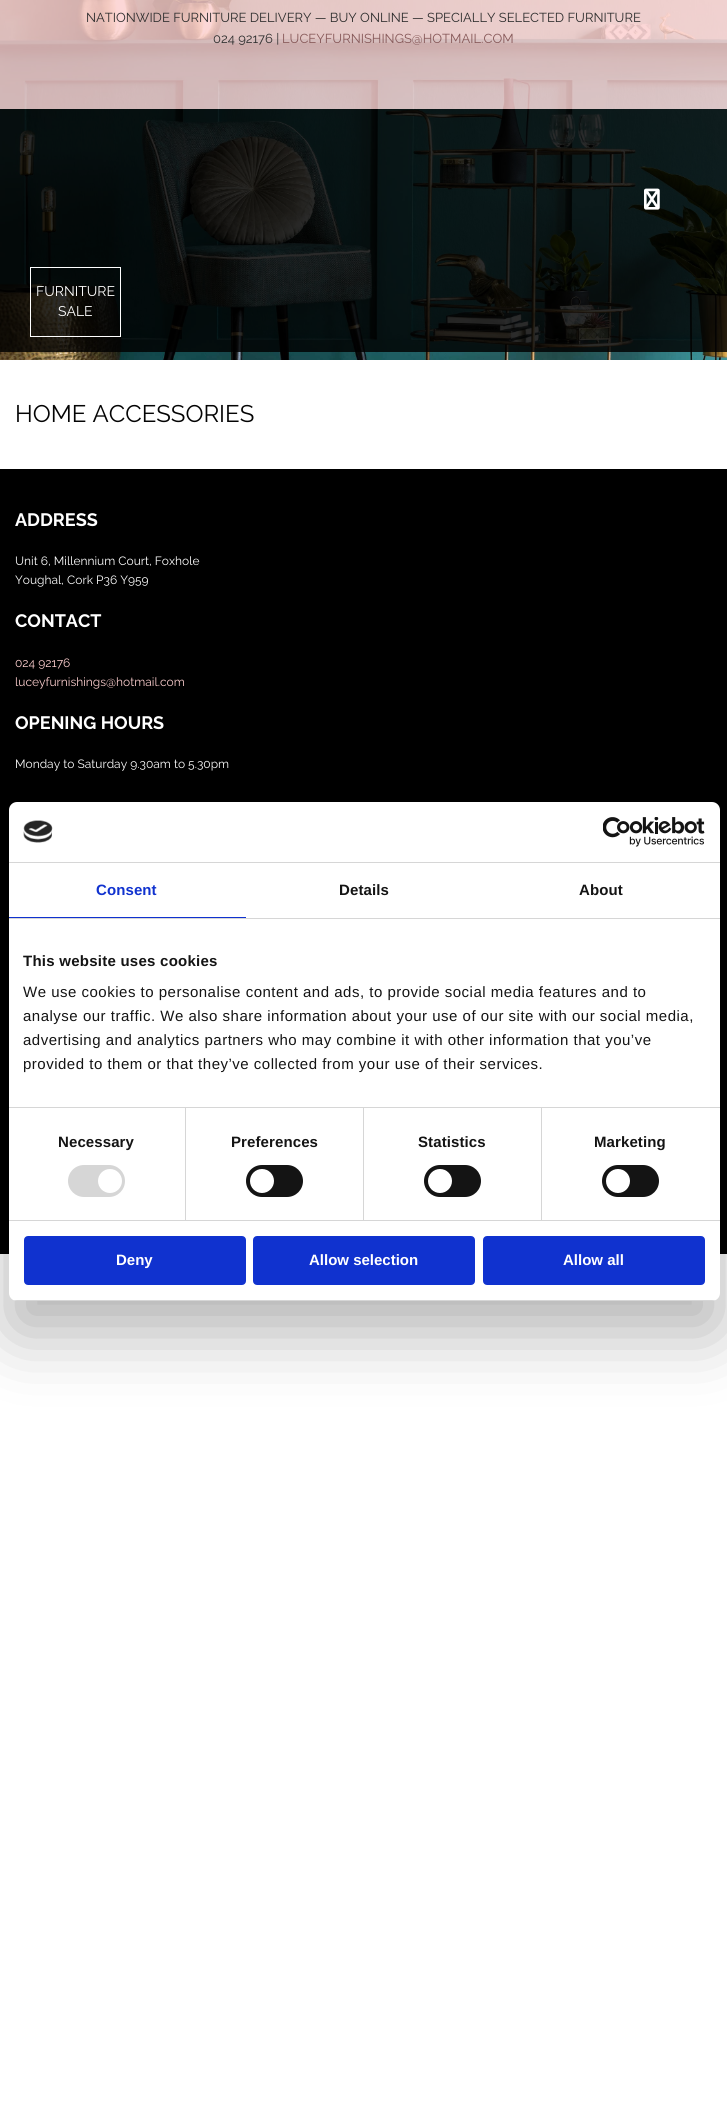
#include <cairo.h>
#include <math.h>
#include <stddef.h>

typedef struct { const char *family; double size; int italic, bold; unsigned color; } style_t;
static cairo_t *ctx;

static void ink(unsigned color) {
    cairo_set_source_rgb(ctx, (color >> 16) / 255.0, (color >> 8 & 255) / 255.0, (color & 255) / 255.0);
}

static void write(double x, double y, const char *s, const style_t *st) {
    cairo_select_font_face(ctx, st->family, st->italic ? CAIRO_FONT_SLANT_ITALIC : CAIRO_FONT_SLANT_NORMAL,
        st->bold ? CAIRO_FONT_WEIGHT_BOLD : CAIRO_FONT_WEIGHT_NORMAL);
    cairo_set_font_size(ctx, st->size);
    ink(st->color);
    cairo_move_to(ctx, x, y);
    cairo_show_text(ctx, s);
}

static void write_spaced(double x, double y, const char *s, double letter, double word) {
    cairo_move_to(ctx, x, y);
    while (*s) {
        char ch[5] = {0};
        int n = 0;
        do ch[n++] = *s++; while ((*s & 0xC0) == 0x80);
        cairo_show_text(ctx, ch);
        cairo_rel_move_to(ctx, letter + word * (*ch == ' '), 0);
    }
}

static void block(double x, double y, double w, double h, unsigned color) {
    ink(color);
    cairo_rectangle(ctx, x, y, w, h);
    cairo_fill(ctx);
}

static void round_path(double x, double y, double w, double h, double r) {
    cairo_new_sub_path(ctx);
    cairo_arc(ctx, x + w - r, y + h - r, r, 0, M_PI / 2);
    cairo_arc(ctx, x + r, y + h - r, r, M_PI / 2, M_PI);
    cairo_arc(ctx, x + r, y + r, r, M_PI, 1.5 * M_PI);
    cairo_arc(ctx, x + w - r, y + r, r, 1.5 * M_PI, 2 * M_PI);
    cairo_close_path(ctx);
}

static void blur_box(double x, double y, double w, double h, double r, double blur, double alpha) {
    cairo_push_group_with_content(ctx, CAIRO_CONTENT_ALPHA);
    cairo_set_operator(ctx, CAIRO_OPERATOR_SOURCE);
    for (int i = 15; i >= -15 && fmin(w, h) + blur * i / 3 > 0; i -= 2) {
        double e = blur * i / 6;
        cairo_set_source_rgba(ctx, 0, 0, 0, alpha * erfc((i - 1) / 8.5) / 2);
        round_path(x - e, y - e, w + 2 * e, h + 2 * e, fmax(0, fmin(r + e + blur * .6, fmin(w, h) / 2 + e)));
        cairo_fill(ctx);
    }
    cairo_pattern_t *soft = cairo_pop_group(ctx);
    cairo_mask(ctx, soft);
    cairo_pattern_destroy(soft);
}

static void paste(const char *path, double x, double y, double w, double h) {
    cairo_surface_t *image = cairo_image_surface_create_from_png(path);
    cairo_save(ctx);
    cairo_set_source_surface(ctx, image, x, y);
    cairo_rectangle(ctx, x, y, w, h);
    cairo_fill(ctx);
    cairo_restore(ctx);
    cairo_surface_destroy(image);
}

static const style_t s1 = {"Raleway", 13, 0, 0, 0x2d2d2d};
static const style_t s2 = {"Raleway", 13, 0, 0, 0x865858};
static const style_t s3 = {"Raleway", 14, 0, 0, 0xffffff};
static const style_t s4 = {"Raleway", 24, 0, 0, 0x040404};
static const style_t s5 = {"Raleway", 18, 0, 1, 0xffffff};
static const style_t s6 = {"Raleway", 12, 0, 0, 0xffffff};
static const style_t s7 = {"Raleway", 12, 0, 0, 0xfccece};
static const style_t s8 = {"Liberation Sans", 15, 0, 1, 0xffffff};

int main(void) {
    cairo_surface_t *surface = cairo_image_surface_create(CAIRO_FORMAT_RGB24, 727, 2102);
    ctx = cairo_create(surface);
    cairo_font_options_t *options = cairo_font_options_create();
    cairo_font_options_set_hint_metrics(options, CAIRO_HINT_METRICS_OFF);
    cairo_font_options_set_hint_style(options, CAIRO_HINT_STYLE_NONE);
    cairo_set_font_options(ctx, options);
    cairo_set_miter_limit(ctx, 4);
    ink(0xffffff);
    cairo_paint(ctx);
    paste("pic2.png", 0, 0, 727, 360);
    cairo_set_source_rgba(ctx, 0.988, 0.808, 0.808, 0.81);
    cairo_rectangle(ctx, 0, 0, 727, 109);
    cairo_fill(ctx);
    write(86, 22, "NATIONWIDE FURNITURE DELIVERY — BUY ONLINE — SPECIALLY SELECTED FURNITURE", &s1);
    write(213, 43, "024 92176 |", &s1);
    write(282, 43, "LUCEYFURNISHINGS@HOTMAIL.COM", &s2);
    cairo_set_source_rgba(ctx, 0, 0, 0, 0.83);
    cairo_rectangle(ctx, 0, 109, 727, 243);
    cairo_fill(ctx);
    paste("pic1.png", 644, 188, 16, 22);
    cairo_rectangle(ctx, 30.5, 267.5, 90, 69);
    ink(0xffffff);
    cairo_set_line_width(ctx, 1);
    cairo_stroke(ctx);
    write(36, 296, "FURNITURE", &s3);
    write(58, 316, "SALE", &s3);
    write(15, 422, "HOME ACCESSORIES", &s4);
    block(0, 469, 727, 785, 0x000000);
    write(15, 526, "ADDRESS", &s5);
    write(15, 565, "Unit 6, Millennium Court, Foxhole", &s6);
    write(15, 584, "Youghal, Cork P36 Y959", &s6);
    write(15, 627, "CONTACT", &s5);
    write(15, 667, "024 92176", &s7);
    write(15, 686, "luceyfurnishings@hotmail.com", &s7);
    write(15, 729, "OPENING HOURS", &s5);
    write(15, 768, "Monday to Saturday 9.30am to 5.30pm", &s6);
    ink(0x000000);
    blur_box(9, 834, 711, 499, 8, 34, 0.3);
    ink(0xffffff);
    round_path(9, 802, 711, 499, 8);
    cairo_fill(ctx);
    block(9, 862, 711, 1, 0xd6d6d6);
    paste("pic3.png", 23, 820, 30, 23);
    paste("pic4.png", 603, 817, 102, 30);
    block(9, 918, 711, 1, 0xd6d6d6);
    block(9, 917, 237, 1, 0x1032cf);
    cairo_select_font_face(ctx, "Liberation Sans", CAIRO_FONT_SLANT_NORMAL, CAIRO_FONT_WEIGHT_BOLD);
    cairo_set_font_size(ctx, 15);
    write_spaced(96, 895, "Consent", 0.1, 0);
    ink(0x141414);
    write_spaced(339, 895, "Details", 0.1, 0);
    write_spaced(579, 895, "About", 0.1, 0);
    block(9, 1107, 711, 1, 0xd6d6d6);
    ink(0x141414);
    write_spaced(23, 966, "This website uses cookies", 0.25, 0);
    cairo_select_font_face(ctx, "Liberation Sans", CAIRO_FONT_SLANT_NORMAL, CAIRO_FONT_WEIGHT_NORMAL);
    write_spaced(23, 997, "We use cookies to personalise content and ads, to provide social media features and to", 0.5, 0);
    write_spaced(23, 1021, "analyse our traffic. We also share information about your use of our site with our social media,", 0.5, 0);
    write_spaced(23, 1045, "advertising and analytics partners who may combine it with other information that you’ve", 0.5, 0);
    write_spaced(23, 1069, "provided to them or that they’ve collected from your use of their services.", 0.5, 0);
    block(9, 1220, 711, 1, 0xd6d6d6);
    block(185, 1108, 1, 112, 0xd6d6d6);
    cairo_select_font_face(ctx, "Liberation Sans", CAIRO_FONT_SLANT_NORMAL, CAIRO_FONT_WEIGHT_BOLD);
    ink(0x141414);
    write_spaced(58, 1147, "Necessary", 0.1, 0);
    ink(0xd6d6d6);
    round_path(68, 1165, 57, 32, 16);
    cairo_fill(ctx);
    ink(0xffffff);
    cairo_arc(ctx, 110, 1181, 12, 0, 2 * M_PI);
    cairo_fill(ctx);
    block(363, 1108, 1, 112, 0xd6d6d6);
    ink(0x141414);
    write_spaced(231, 1147, "Preferences", 0.1, 0);
    round_path(246, 1165, 57, 32, 16);
    cairo_fill(ctx);
    ink(0xffffff);
    cairo_arc(ctx, 262, 1181, 12, 0, 2 * M_PI);
    cairo_fill(ctx);
    block(541, 1108, 1, 112, 0xd6d6d6);
    ink(0x141414);
    write_spaced(418, 1147, "Statistics", 0.1, 0);
    round_path(424, 1165, 57, 32, 16);
    cairo_fill(ctx);
    ink(0xffffff);
    cairo_arc(ctx, 440, 1181, 12, 0, 2 * M_PI);
    cairo_fill(ctx);
    ink(0x141414);
    write_spaced(594, 1147, "Marketing", 0.1, 0);
    round_path(602, 1165, 57, 32, 16);
    cairo_fill(ctx);
    ink(0xffffff);
    cairo_arc(ctx, 618, 1181, 12, 0, 2 * M_PI);
    cairo_fill(ctx);
    cairo_save(ctx);
    round_path(9, 802, 711, 499, 8);
    cairo_clip(ctx);
    block(9, 1300, 711, 1, 0xd6d6d6);
    cairo_restore(ctx);
    ink(0x1032cf);
    round_path(25, 1237, 220, 47, 3);
    cairo_fill_preserve(ctx);
    cairo_set_line_width(ctx, 2);
    cairo_stroke(ctx);
    write(116, 1265, "Deny", &s8);
    ink(0x1032cf);
    round_path(254, 1237, 220, 47, 3);
    cairo_fill_preserve(ctx);
    cairo_stroke(ctx);
    write(309, 1265, "Allow selection", &s8);
    ink(0x1032cf);
    round_path(484, 1237, 220, 47, 3);
    cairo_fill_preserve(ctx);
    cairo_stroke(ctx);
    write(563, 1265, "Allow all", &s8);
    cairo_surface_write_to_png(surface, "screenshot.png");
    cairo_font_options_destroy(options);
    cairo_destroy(ctx);
    cairo_surface_destroy(surface);
    return 0;
}
